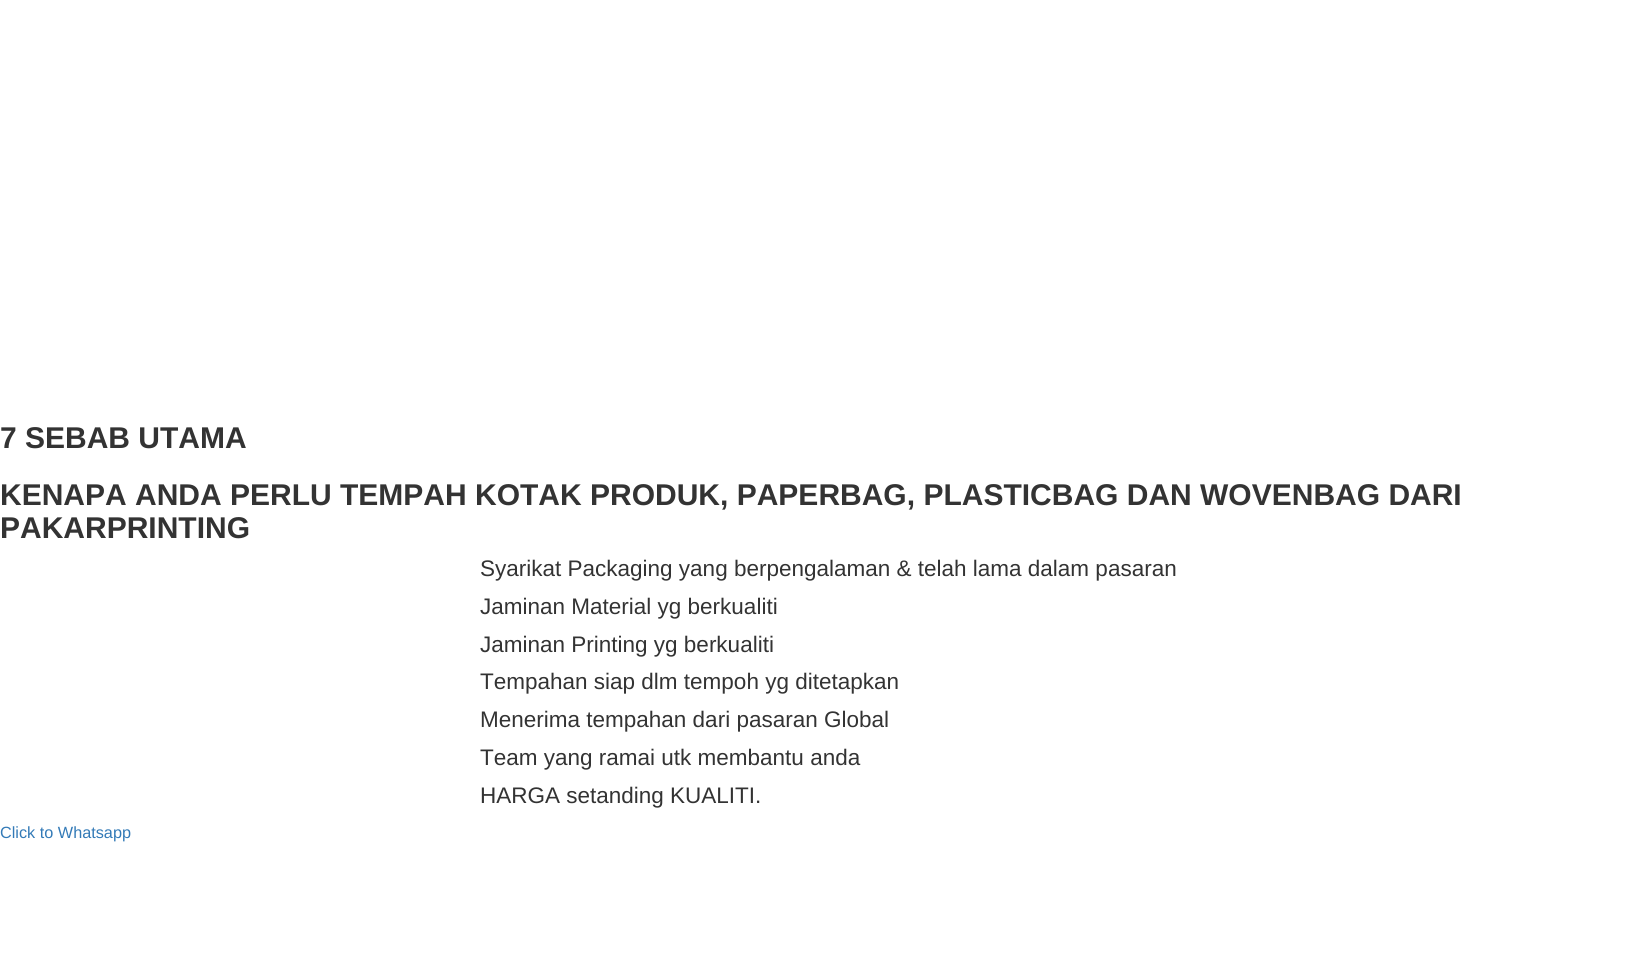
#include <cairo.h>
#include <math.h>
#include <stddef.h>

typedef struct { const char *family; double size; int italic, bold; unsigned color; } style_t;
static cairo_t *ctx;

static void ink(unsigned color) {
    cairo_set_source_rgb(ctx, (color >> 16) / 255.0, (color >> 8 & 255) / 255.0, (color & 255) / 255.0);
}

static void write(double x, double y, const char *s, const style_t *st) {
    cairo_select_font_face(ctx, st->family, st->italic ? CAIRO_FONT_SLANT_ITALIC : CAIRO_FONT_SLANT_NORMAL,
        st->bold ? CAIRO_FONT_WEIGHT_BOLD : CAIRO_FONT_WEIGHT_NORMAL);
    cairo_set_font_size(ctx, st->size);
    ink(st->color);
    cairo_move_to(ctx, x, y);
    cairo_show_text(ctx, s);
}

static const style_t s1 = {"Liberation Sans", 30, 0, 1, 0x333333};
static const style_t s2 = {"Liberation Sans", 22.5, 0, 0, 0x333333};
static const style_t s3 = {"Liberation Sans", 16.25, 0, 0, 0x337ab7};

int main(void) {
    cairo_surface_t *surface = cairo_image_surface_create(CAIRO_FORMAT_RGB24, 1643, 980);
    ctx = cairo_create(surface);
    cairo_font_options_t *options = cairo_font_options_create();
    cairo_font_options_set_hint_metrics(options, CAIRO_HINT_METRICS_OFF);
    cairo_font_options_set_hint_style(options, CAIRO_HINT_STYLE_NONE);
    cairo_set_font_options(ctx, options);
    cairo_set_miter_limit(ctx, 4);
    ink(0xffffff);
    cairo_paint(ctx);
    write(0, 448, "7 SEBAB UTAMA", &s1);
    write(0, 505, "KENAPA ANDA PERLU TEMPAH KOTAK PRODUK, PAPERBAG, PLASTICBAG DAN WOVENBAG DARI", &s1);
    write(0, 538, "PAKARPRINTING", &s1);
    write(480, 576, "Syarikat Packaging yang berpengalaman & telah lama dalam pasaran", &s2);
    write(480, 614, "Jaminan Material yg berkualiti", &s2);
    write(480, 652, "Jaminan Printing yg berkualiti", &s2);
    write(480, 689, "Tempahan siap dlm tempoh yg ditetapkan", &s2);
    write(480, 727, "Menerima tempahan dari pasaran Global", &s2);
    write(480, 765, "Team yang ramai utk membantu anda", &s2);
    write(480, 803, "HARGA setanding KUALITI.", &s2);
    write(0, 838, "Click to Whatsapp", &s3);
    cairo_surface_write_to_png(surface, "screenshot.png");
    cairo_font_options_destroy(options);
    cairo_destroy(ctx);
    cairo_surface_destroy(surface);
    return 0;
}
